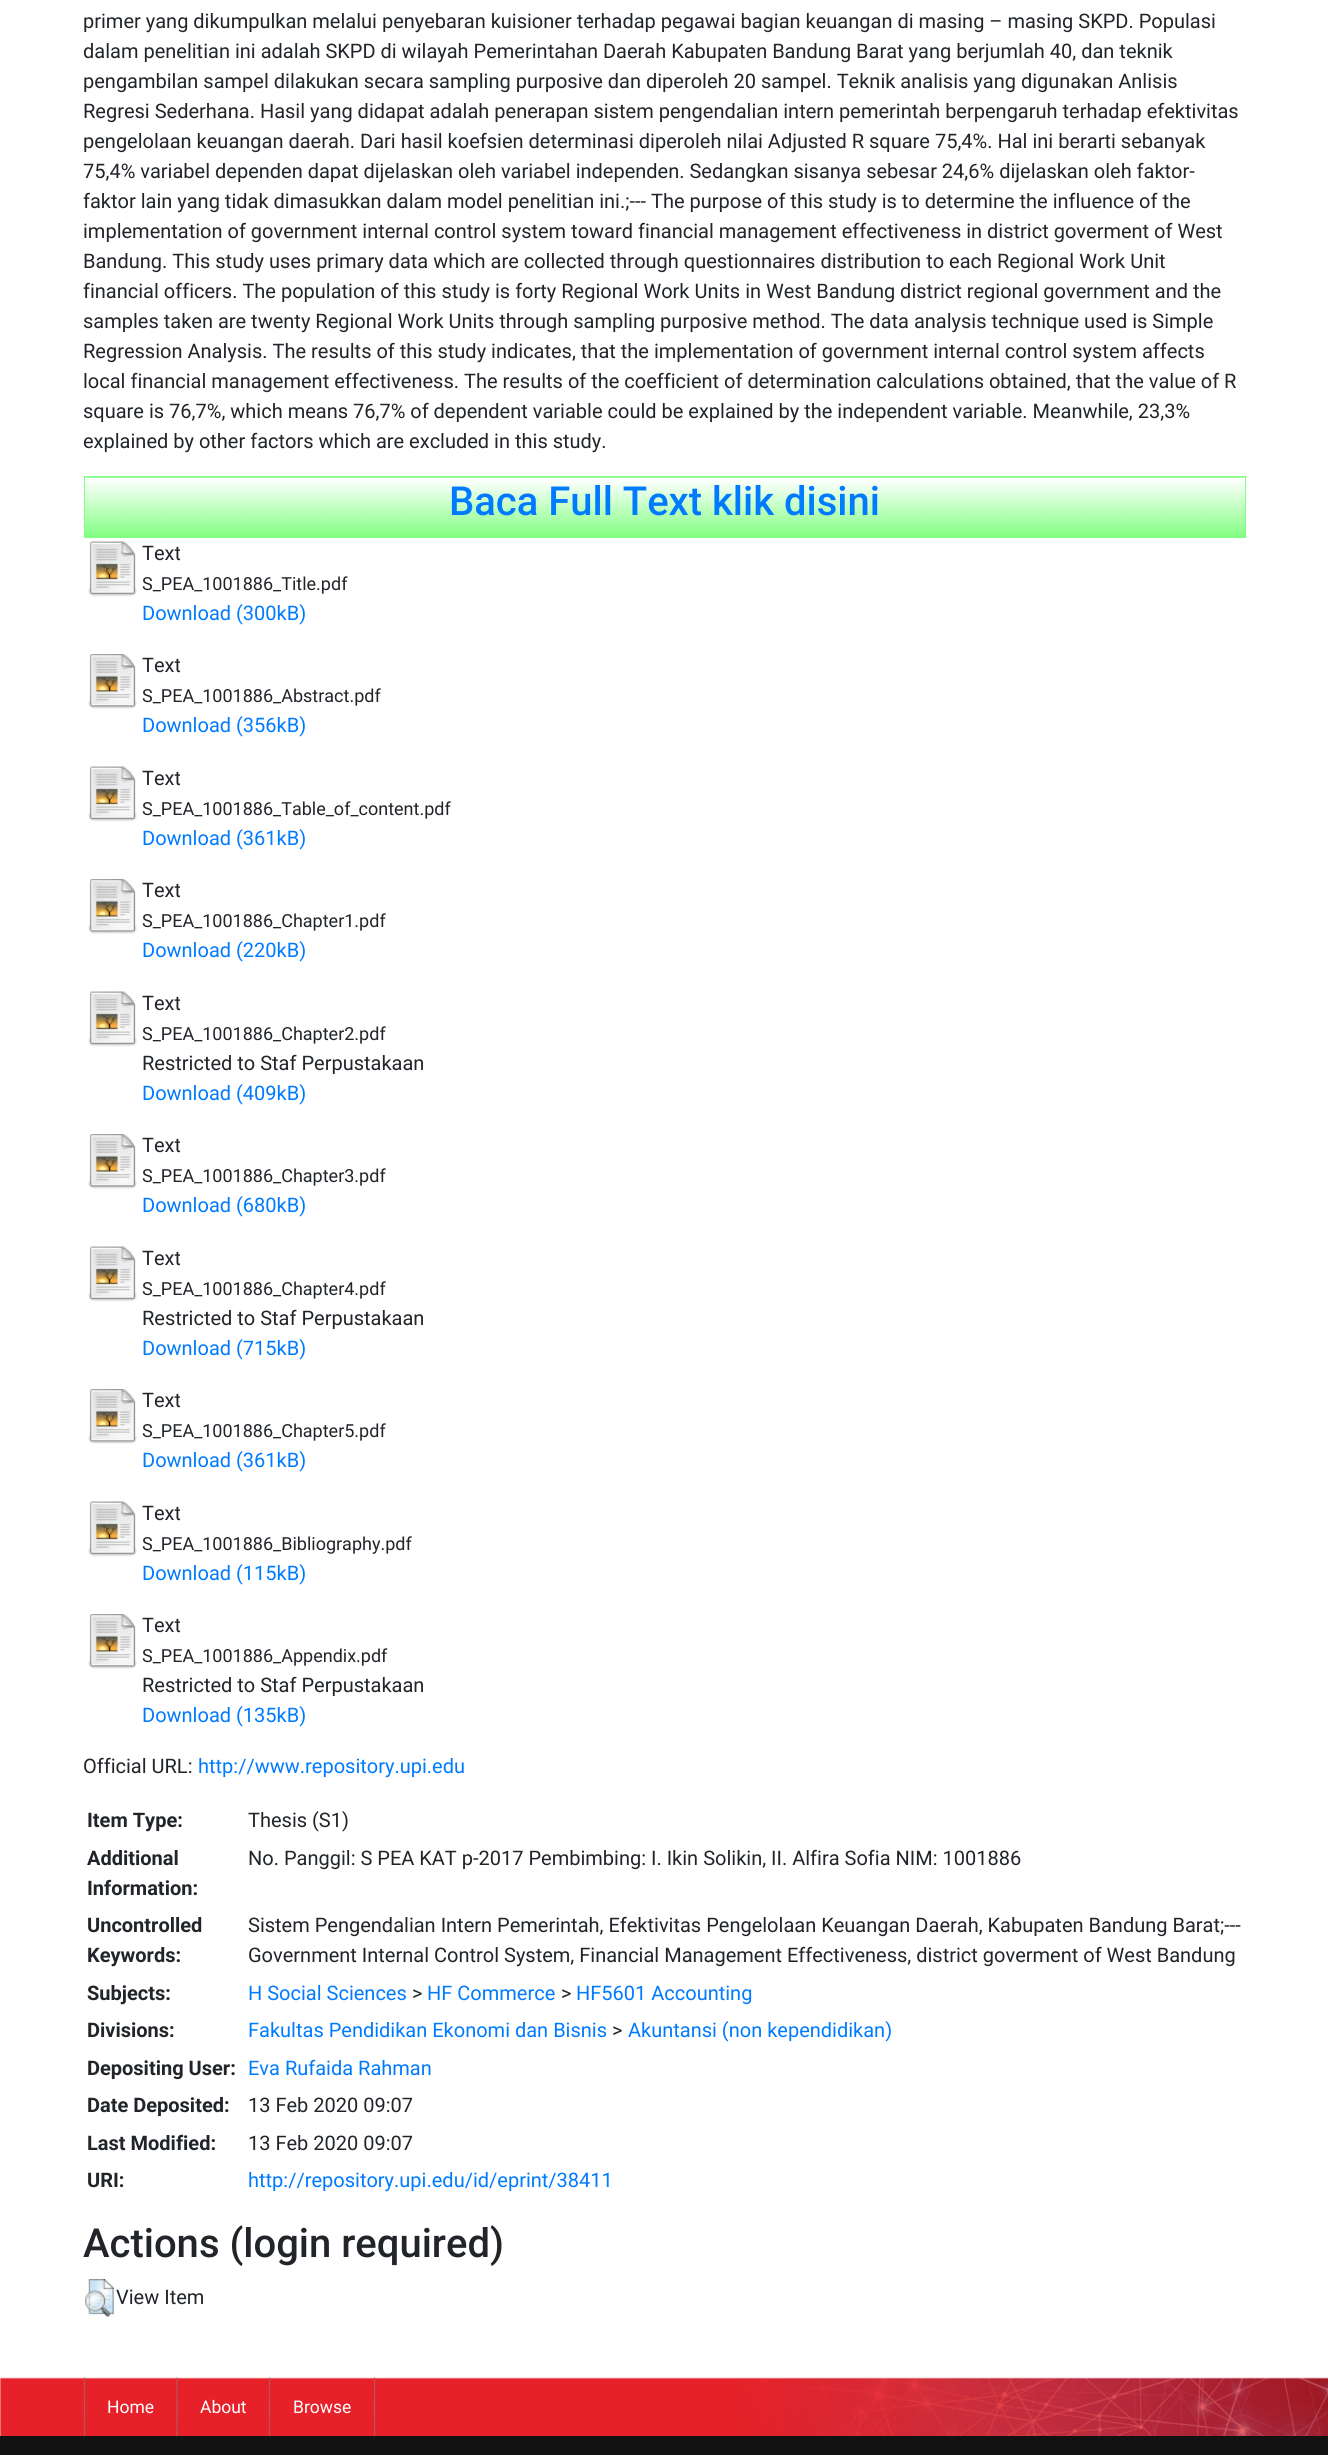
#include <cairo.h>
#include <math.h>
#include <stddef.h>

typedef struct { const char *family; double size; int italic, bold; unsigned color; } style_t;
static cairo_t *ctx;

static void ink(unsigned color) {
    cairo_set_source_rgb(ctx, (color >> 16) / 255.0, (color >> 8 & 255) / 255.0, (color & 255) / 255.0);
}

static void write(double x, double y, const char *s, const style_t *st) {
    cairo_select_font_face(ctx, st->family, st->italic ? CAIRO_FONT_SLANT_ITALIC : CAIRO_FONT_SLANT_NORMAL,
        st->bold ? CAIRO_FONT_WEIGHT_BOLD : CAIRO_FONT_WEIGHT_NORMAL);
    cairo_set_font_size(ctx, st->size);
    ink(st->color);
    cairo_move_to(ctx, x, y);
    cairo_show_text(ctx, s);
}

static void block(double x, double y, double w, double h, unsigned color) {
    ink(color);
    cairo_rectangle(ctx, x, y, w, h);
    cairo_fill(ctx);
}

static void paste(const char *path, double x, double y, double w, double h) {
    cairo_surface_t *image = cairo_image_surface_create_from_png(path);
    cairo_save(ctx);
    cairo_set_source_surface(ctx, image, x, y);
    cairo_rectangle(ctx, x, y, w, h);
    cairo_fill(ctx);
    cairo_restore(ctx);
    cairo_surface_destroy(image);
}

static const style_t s1 = {"Roboto", 20, 0, 0, 0x212529};
static const style_t s2 = {"Roboto Medium", 40, 0, 0, 0x007bff};
static const style_t s3 = {"Roboto", 18, 0, 0, 0x212529};
static const style_t s4 = {"Roboto", 20, 0, 0, 0x007bff};
static const style_t s5 = {"Roboto", 20, 0, 1, 0x212529};
static const style_t s6 = {"Roboto Medium", 40, 0, 0, 0x212529};
static const style_t s7 = {"Roboto", 17.5, 0, 0, 0xffffff};

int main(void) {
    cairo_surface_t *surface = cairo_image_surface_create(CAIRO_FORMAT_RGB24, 1328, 2455);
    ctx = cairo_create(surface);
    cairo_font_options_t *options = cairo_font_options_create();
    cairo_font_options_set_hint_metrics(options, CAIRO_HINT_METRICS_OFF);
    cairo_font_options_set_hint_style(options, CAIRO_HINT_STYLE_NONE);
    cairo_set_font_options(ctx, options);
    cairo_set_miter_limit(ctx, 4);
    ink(0xffffff);
    cairo_paint(ctx);
    write(83, 28, "primer yang dikumpulkan melalui penyebaran kuisioner terhadap pegawai bagian keuangan di masing – masing SKPD. Populasi", &s1);
    write(83, 58, "dalam penelitian ini adalah SKPD di wilayah Pemerintahan Daerah Kabupaten Bandung Barat yang berjumlah 40, dan teknik", &s1);
    write(83, 88, "pengambilan sampel dilakukan secara sampling purposive dan diperoleh 20 sampel. Teknik analisis yang digunakan Anlisis", &s1);
    write(83, 118, "Regresi Sederhana. Hasil yang didapat adalah penerapan sistem pengendalian intern pemerintah berpengaruh terhadap efektivitas", &s1);
    write(83, 148, "pengelolaan keuangan daerah. Dari hasil koefsien determinasi diperoleh nilai Adjusted R square 75,4%. Hal ini berarti sebanyak", &s1);
    write(83, 178, "75,4% variabel dependen dapat dijelaskan oleh variabel independen. Sedangkan sisanya sebesar 24,6% dijelaskan oleh faktor-", &s1);
    write(83, 208, "faktor lain yang tidak dimasukkan dalam model penelitian ini.;--- The purpose of this study is to determine the influence of the", &s1);
    write(83, 238, "implementation of government internal control system toward financial management effectiveness in district goverment of West", &s1);
    write(83, 268, "Bandung. This study uses primary data which are collected through questionnaires distribution to each Regional Work Unit", &s1);
    write(83, 298, "financial officers. The population of this study is forty Regional Work Units in West Bandung district regional government and the", &s1);
    write(83, 328, "samples taken are twenty Regional Work Units through sampling purposive method. The data analysis technique used is Simple", &s1);
    write(83, 358, "Regression Analysis. The results of this study indicates, that the implementation of government internal control system affects", &s1);
    write(83, 388, "local financial management effectiveness. The results of the coefficient of determination calculations obtained, that the value of R", &s1);
    write(83, 418, "square is 76,7%, which means 76,7% of dependent variable could be explained by the independent variable. Meanwhile, 23,3%", &s1);
    write(83, 448, "explained by other factors which are excluded in this study.", &s1);
    block(85, 477, 1160, 60, 0x80ff80);
    paste("pic1.png", 85, 477, 1160, 59);
    cairo_rectangle(ctx, 84.5, 476.5, 1161, 61);
    cairo_set_line_width(ctx, 1);
    cairo_stroke(ctx);
    write(449, 515, "Baca Full Text klik disini", &s2);
    paste("pic2.png", 88, 541, 49, 56);
    write(142, 560, "Text", &s1);
    write(142, 590, "S_PEA_1001886_Title.pdf", &s3);
    write(142, 620, "Download (300kB)", &s4);
    paste("pic3.png", 88, 654, 49, 55);
    write(142, 672, "Text", &s1);
    write(142, 702, "S_PEA_1001886_Abstract.pdf", &s3);
    write(142, 732, "Download (356kB)", &s4);
    paste("pic2.png", 88, 766, 49, 56);
    write(142, 785, "Text", &s1);
    write(142, 815, "S_PEA_1001886_Table_of_content.pdf", &s3);
    write(142, 845, "Download (361kB)", &s4);
    paste("pic3.png", 88, 879, 49, 55);
    write(142, 897, "Text", &s1);
    write(142, 927, "S_PEA_1001886_Chapter1.pdf", &s3);
    write(142, 957, "Download (220kB)", &s4);
    paste("pic2.png", 88, 991, 49, 56);
    write(142, 1010, "Text", &s1);
    write(142, 1040, "S_PEA_1001886_Chapter2.pdf", &s3);
    write(142, 1070, "Restricted to Staf Perpustakaan", &s1);
    write(142, 1100, "Download (409kB)", &s4);
    paste("pic4.png", 88, 1134, 49, 55);
    write(142, 1152, "Text", &s1);
    write(142, 1182, "S_PEA_1001886_Chapter3.pdf", &s3);
    write(142, 1212, "Download (680kB)", &s4);
    paste("pic2.png", 88, 1246, 49, 56);
    write(142, 1265, "Text", &s1);
    write(142, 1295, "S_PEA_1001886_Chapter4.pdf", &s3);
    write(142, 1325, "Restricted to Staf Perpustakaan", &s1);
    write(142, 1355, "Download (715kB)", &s4);
    paste("pic3.png", 88, 1389, 49, 55);
    write(142, 1407, "Text", &s1);
    write(142, 1437, "S_PEA_1001886_Chapter5.pdf", &s3);
    write(142, 1467, "Download (361kB)", &s4);
    paste("pic2.png", 88, 1501, 49, 56);
    write(142, 1520, "Text", &s1);
    write(142, 1550, "S_PEA_1001886_Bibliography.pdf", &s3);
    write(142, 1580, "Download (115kB)", &s4);
    paste("pic3.png", 88, 1614, 49, 55);
    write(142, 1632, "Text", &s1);
    write(142, 1662, "S_PEA_1001886_Appendix.pdf", &s3);
    write(142, 1692, "Restricted to Staf Perpustakaan", &s1);
    write(142, 1722, "Download (135kB)", &s4);
    write(83, 1773, "Official URL:", &s1);
    write(198, 1773, "http://www.repository.upi.edu", &s4);
    write(87, 1827, "Item Type:", &s5);
    write(248, 1827, "Thesis (S1)", &s1);
    write(87, 1865, "Additional", &s5);
    write(87, 1895, "Information:", &s5);
    write(248, 1865, "No. Panggil: S PEA KAT p-2017 Pembimbing: I. Ikin Solikin, II. Alfira Sofia NIM: 1001886", &s1);
    write(87, 1932, "Uncontrolled", &s5);
    write(87, 1962, "Keywords:", &s5);
    write(248, 1932, "Sistem Pengendalian Intern Pemerintah, Efektivitas Pengelolaan Keuangan Daerah, Kabupaten Bandung Barat;---", &s1);
    write(248, 1962, "Government Internal Control System, Financial Management Effectiveness, district goverment of West Bandung", &s1);
    write(87, 2000, "Subjects:", &s5);
    write(248, 2000, "H Social Sciences", &s4);
    write(412, 2000, ">", &s1);
    write(427, 2000, "HF Commerce", &s4);
    write(561, 2000, ">", &s1);
    write(576, 2000, "HF5601 Accounting", &s4);
    write(87, 2037, "Divisions:", &s5);
    write(248, 2037, "Fakultas Pendidikan Ekonomi dan Bisnis", &s4);
    write(612, 2037, ">", &s1);
    write(628, 2037, "Akuntansi (non kependidikan)", &s4);
    write(87, 2075, "Depositing User:", &s5);
    write(248, 2075, "Eva Rufaida Rahman", &s4);
    write(87, 2112, "Date Deposited:", &s5);
    write(248, 2112, "13 Feb 2020 09:07", &s1);
    write(87, 2150, "Last Modified:", &s5);
    write(248, 2150, "13 Feb 2020 09:07", &s1);
    write(87, 2187, "URI:", &s5);
    write(248, 2187, "http://repository.upi.edu/id/eprint/38411", &s4);
    write(83, 2257, "Actions (login required)", &s6);
    paste("pic5.png", 85, 2279, 29, 38);
    write(116, 2304, "View Item", &s1);
    paste("pic6.png", 0, 2377, 1328, 59);
    cairo_new_path(ctx);
    cairo_move_to(ctx, 84.5, 2377.5);
    cairo_line_to(ctx, 84.5, 2436);
    ink(0x888888);
    cairo_set_line_width(ctx, 1.2);
    cairo_set_dash(ctx, (double[]){1.25, 1.25}, 2, 0);
    cairo_stroke(ctx);
    write(107, 2413, "Home", &s7);
    cairo_new_path(ctx);
    cairo_move_to(ctx, 177, 2377.5);
    cairo_line_to(ctx, 177, 2436);
    ink(0x888888);
    cairo_stroke(ctx);
    write(200, 2413, "About", &s7);
    cairo_new_path(ctx);
    cairo_move_to(ctx, 269.5, 2377.5);
    cairo_line_to(ctx, 269.5, 2436);
    ink(0x888888);
    cairo_stroke(ctx);
    write(293, 2413, "Browse", &s7);
    cairo_new_path(ctx);
    cairo_move_to(ctx, 374.5, 2377.5);
    cairo_line_to(ctx, 374.5, 2436);
    ink(0x888888);
    cairo_stroke(ctx);
    block(0, 2436, 1328, 19, 0x121212);
    cairo_surface_write_to_png(surface, "screenshot.png");
    cairo_font_options_destroy(options);
    cairo_destroy(ctx);
    cairo_surface_destroy(surface);
    return 0;
}
